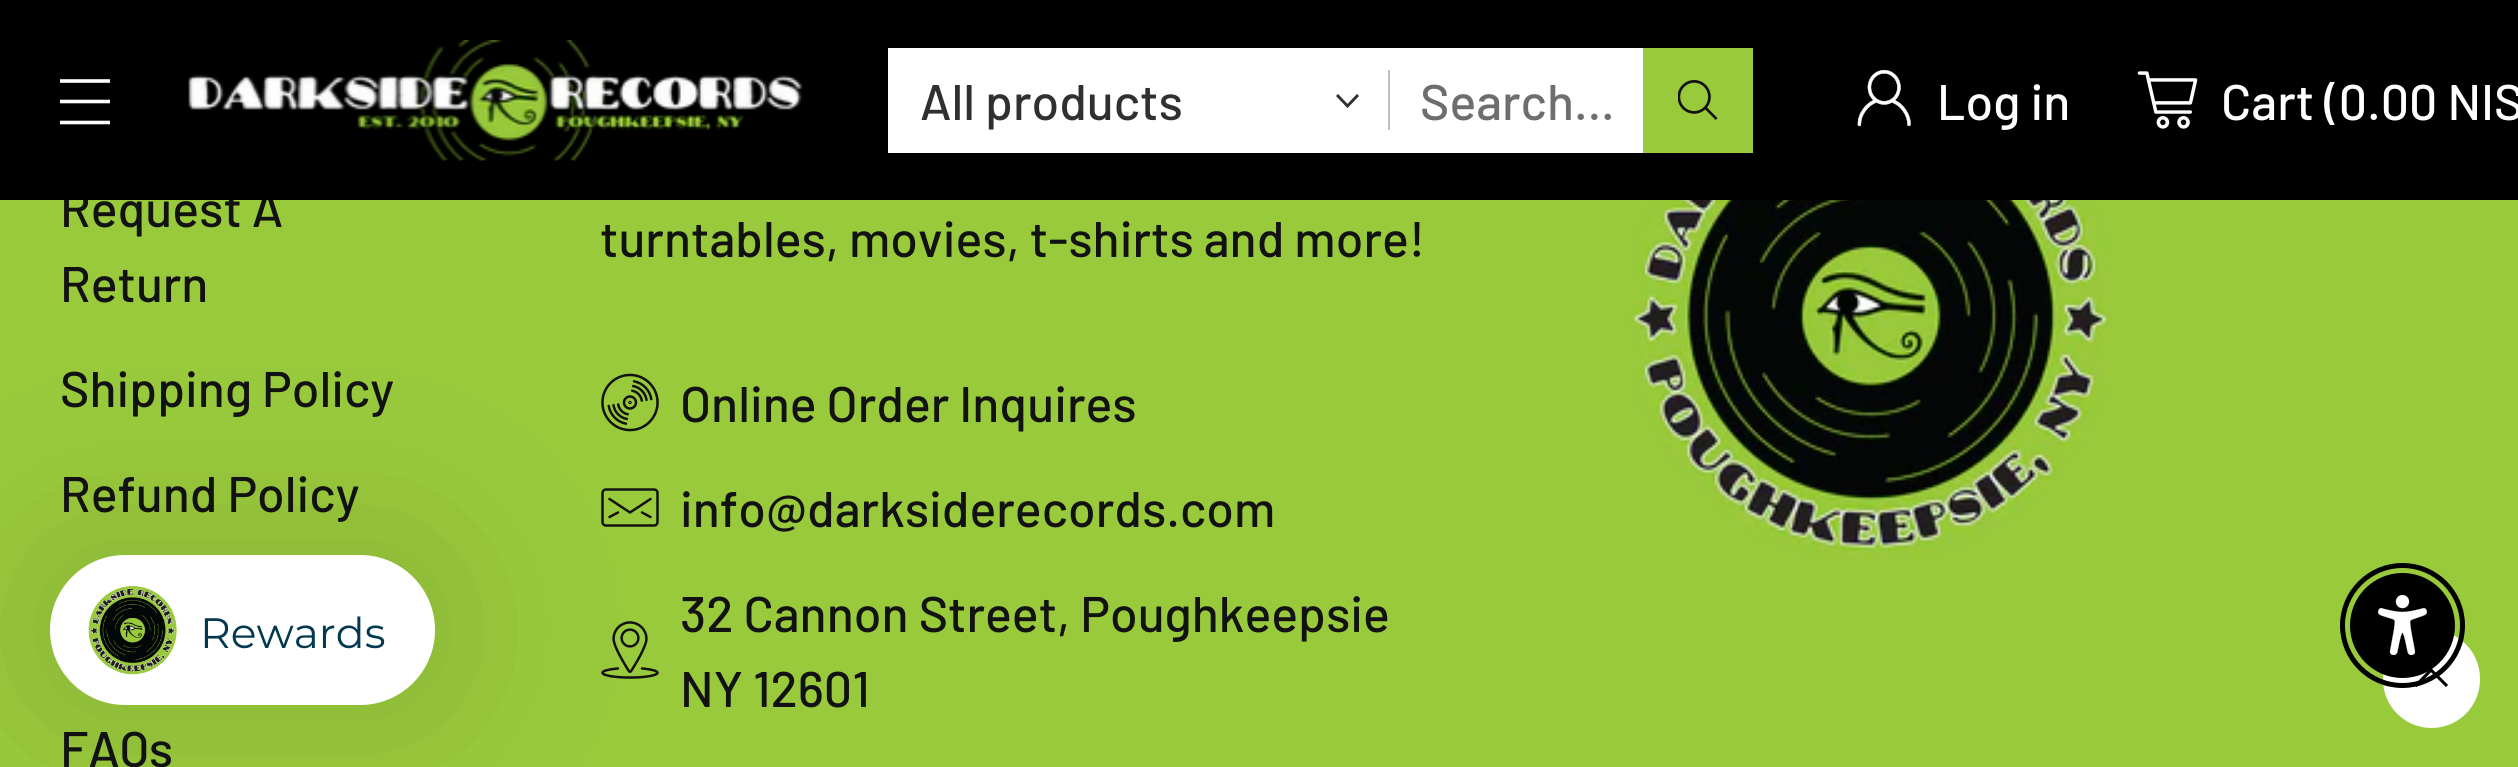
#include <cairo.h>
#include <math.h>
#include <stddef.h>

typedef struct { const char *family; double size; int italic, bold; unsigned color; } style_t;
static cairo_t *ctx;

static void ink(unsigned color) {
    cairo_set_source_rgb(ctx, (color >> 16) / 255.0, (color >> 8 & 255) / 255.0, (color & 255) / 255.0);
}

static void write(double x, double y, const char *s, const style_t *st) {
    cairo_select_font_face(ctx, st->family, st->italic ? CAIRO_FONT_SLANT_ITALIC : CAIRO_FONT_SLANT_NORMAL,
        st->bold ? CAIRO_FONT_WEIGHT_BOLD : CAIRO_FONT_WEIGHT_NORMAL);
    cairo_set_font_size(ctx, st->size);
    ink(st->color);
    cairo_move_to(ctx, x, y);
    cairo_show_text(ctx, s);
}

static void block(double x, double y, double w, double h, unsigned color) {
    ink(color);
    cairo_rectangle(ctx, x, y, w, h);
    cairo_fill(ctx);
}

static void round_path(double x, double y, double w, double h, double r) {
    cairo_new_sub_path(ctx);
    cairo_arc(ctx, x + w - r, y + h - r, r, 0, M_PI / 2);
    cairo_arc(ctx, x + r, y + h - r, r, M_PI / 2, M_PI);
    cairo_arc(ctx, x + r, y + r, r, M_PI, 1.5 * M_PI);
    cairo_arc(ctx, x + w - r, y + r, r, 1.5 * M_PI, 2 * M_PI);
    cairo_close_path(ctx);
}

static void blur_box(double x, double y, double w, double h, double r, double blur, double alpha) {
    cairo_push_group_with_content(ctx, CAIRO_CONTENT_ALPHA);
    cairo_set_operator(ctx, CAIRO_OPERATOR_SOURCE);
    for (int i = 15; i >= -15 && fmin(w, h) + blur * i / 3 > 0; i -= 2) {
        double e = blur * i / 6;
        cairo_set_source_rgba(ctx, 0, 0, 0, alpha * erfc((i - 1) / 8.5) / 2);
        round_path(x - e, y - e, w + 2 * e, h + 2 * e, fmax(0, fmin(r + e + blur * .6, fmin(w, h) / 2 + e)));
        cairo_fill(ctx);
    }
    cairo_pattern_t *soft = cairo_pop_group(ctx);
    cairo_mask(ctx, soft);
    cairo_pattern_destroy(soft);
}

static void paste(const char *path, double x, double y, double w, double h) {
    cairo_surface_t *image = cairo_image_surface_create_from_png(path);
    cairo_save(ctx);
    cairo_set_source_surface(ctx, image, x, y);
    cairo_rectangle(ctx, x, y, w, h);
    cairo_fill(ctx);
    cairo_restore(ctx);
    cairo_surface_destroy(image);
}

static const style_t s1 = {"Barlow Medium", 50, 0, 0, 0x121212};
static const style_t s2 = {"Barlow Medium", 50, 0, 0, 0x303030};
static const style_t s3 = {"Barlow Medium", 50, 0, 0, 0x6e6e6e};
static const style_t s4 = {"Barlow Medium", 50, 0, 0, 0xffffff};
static const style_t s5 = {"Montserrat", 42.5, 0, 0, 0x033950};

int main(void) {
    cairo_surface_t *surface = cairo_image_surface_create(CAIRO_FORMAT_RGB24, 2518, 767);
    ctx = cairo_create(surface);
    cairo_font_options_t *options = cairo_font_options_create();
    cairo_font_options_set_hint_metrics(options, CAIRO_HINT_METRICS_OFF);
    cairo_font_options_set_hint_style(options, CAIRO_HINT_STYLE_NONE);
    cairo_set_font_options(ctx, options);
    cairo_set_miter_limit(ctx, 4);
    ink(0x99ca3c);
    cairo_paint(ctx);
    write(60, 227, "Request A", &s1);
    block(0, 0, 2518, 200, 0x000000);
    cairo_new_path(ctx);
    cairo_move_to(ctx, 60, 101.5);
    cairo_line_to(ctx, 110, 101.5);
    cairo_move_to(ctx, 60, 81);
    cairo_line_to(ctx, 110, 81);
    cairo_move_to(ctx, 60, 122.5);
    cairo_line_to(ctx, 110, 122.5);
    ink(0xffffff);
    cairo_set_line_width(ctx, 3.6);
    cairo_stroke(ctx);
    paste("pic1.png", 188, 40, 615, 121);
    block(888, 48, 755, 105, 0xffffff);
    write(920, 120, "All products", &s2);
    cairo_new_path(ctx);
    cairo_move_to(ctx, 1337, 95);
    cairo_line_to(ctx, 1347.5, 106);
    cairo_line_to(ctx, 1358, 95);
    cairo_set_line_width(ctx, 2.9);
    cairo_stroke(ctx);
    block(1388, 70, 2, 60, 0xc6bcb9);
    write(1420, 120, "Search…", &s3);
    block(1643, 48, 110, 105, 0x99ca3c);
    paste("pic2.png", 1678, 80, 40, 40);
    paste("pic3.png", 1857, 70, 54, 57);
    write(1937, 120, "Log in", &s4);
    paste("pic4.png", 2137, 71, 61, 58);
    write(2221, 120, "Cart (0.00 NIS", &s4);
    write(60, 302, "Return", &s1);
    write(60, 407, "Shipping Policy", &s1);
    write(60, 512, "Refund Policy", &s1);
    write(60, 767, "FAQs", &s1);
    write(600, 257, "turntables, movies, t-shirts and more!", &s1);
    paste("pic5.png", 601, 373, 58, 59);
    write(680, 422, "Online Order Inquires", &s1);
    cairo_new_path(ctx);
    cairo_move_to(ctx, 606, 489.5);
    cairo_line_to(ctx, 654, 489.5);
    cairo_curve_to(ctx, 654, 489.5, 657.5, 489.5, 657.5, 493);
    cairo_line_to(ctx, 657.5, 522);
    cairo_curve_to(ctx, 657.5, 522, 657.5, 525.5, 654, 525.5);
    cairo_line_to(ctx, 606, 525.5);
    cairo_curve_to(ctx, 606, 525.5, 602.5, 525.5, 602.5, 522);
    cairo_line_to(ctx, 602.5, 493);
    cairo_curve_to(ctx, 602.5, 493, 602.5, 489.5, 606, 489.5);
    cairo_move_to(ctx, 650.5, 499);
    cairo_line_to(ctx, 630, 512.5);
    cairo_line_to(ctx, 609.5, 499);
    cairo_move_to(ctx, 609.5, 517);
    cairo_line_to(ctx, 618, 512.5);
    cairo_move_to(ctx, 650.5, 517);
    cairo_line_to(ctx, 642, 512.5);
    cairo_set_line_width(ctx, 2.5);
    cairo_set_line_cap(ctx, CAIRO_LINE_CAP_ROUND);
    cairo_set_line_join(ctx, CAIRO_LINE_JOIN_ROUND);
    cairo_stroke(ctx);
    write(680, 527, "info@darksiderecords.com", &s1);
    paste("pic6.png", 601, 621, 58, 58);
    write(680, 632, "32 Cannon Street, Poughkeepsie", &s1);
    write(680, 707, "NY 12601", &s1);
    paste("pic7.png", 1631, 200, 483, 360);
    ink(0xffffff);
    round_path(2383, 630, 97, 98, 48.5);
    cairo_fill(ctx);
    cairo_new_path(ctx);
    cairo_move_to(ctx, 2447, 686);
    cairo_line_to(ctx, 2431, 670);
    cairo_line_to(ctx, 2415.5, 686);
    ink(0x000000);
    cairo_set_line_width(ctx, 3.1);
    cairo_set_line_cap(ctx, CAIRO_LINE_CAP_BUTT);
    cairo_set_line_join(ctx, CAIRO_LINE_JOIN_MITER);
    cairo_stroke(ctx);
    ink(0x000000);
    blur_box(50, 555, 385, 150, 75, 100, 0.12);
    ink(0xffffff);
    round_path(50, 555, 385, 150, 75);
    cairo_fill(ctx);
    paste("pic8.png", 88, 585, 89, 90);
    write(200, 648, "Rewards", &s5);
    cairo_new_path(ctx);
    cairo_arc(ctx, 2402.5, 625.5, 60, 0, 2 * M_PI);
    ink(0x000000);
    cairo_set_line_width(ctx, 5);
    cairo_stroke(ctx);
    cairo_arc(ctx, 2402.5, 625.5, 51, 0, 2 * M_PI);
    cairo_fill_preserve(ctx);
    cairo_set_line_width(ctx, 3);
    cairo_stroke(ctx);
    paste("pic9.png", 2378, 595, 49, 60);
    cairo_surface_write_to_png(surface, "screenshot.png");
    cairo_font_options_destroy(options);
    cairo_destroy(ctx);
    cairo_surface_destroy(surface);
    return 0;
}
